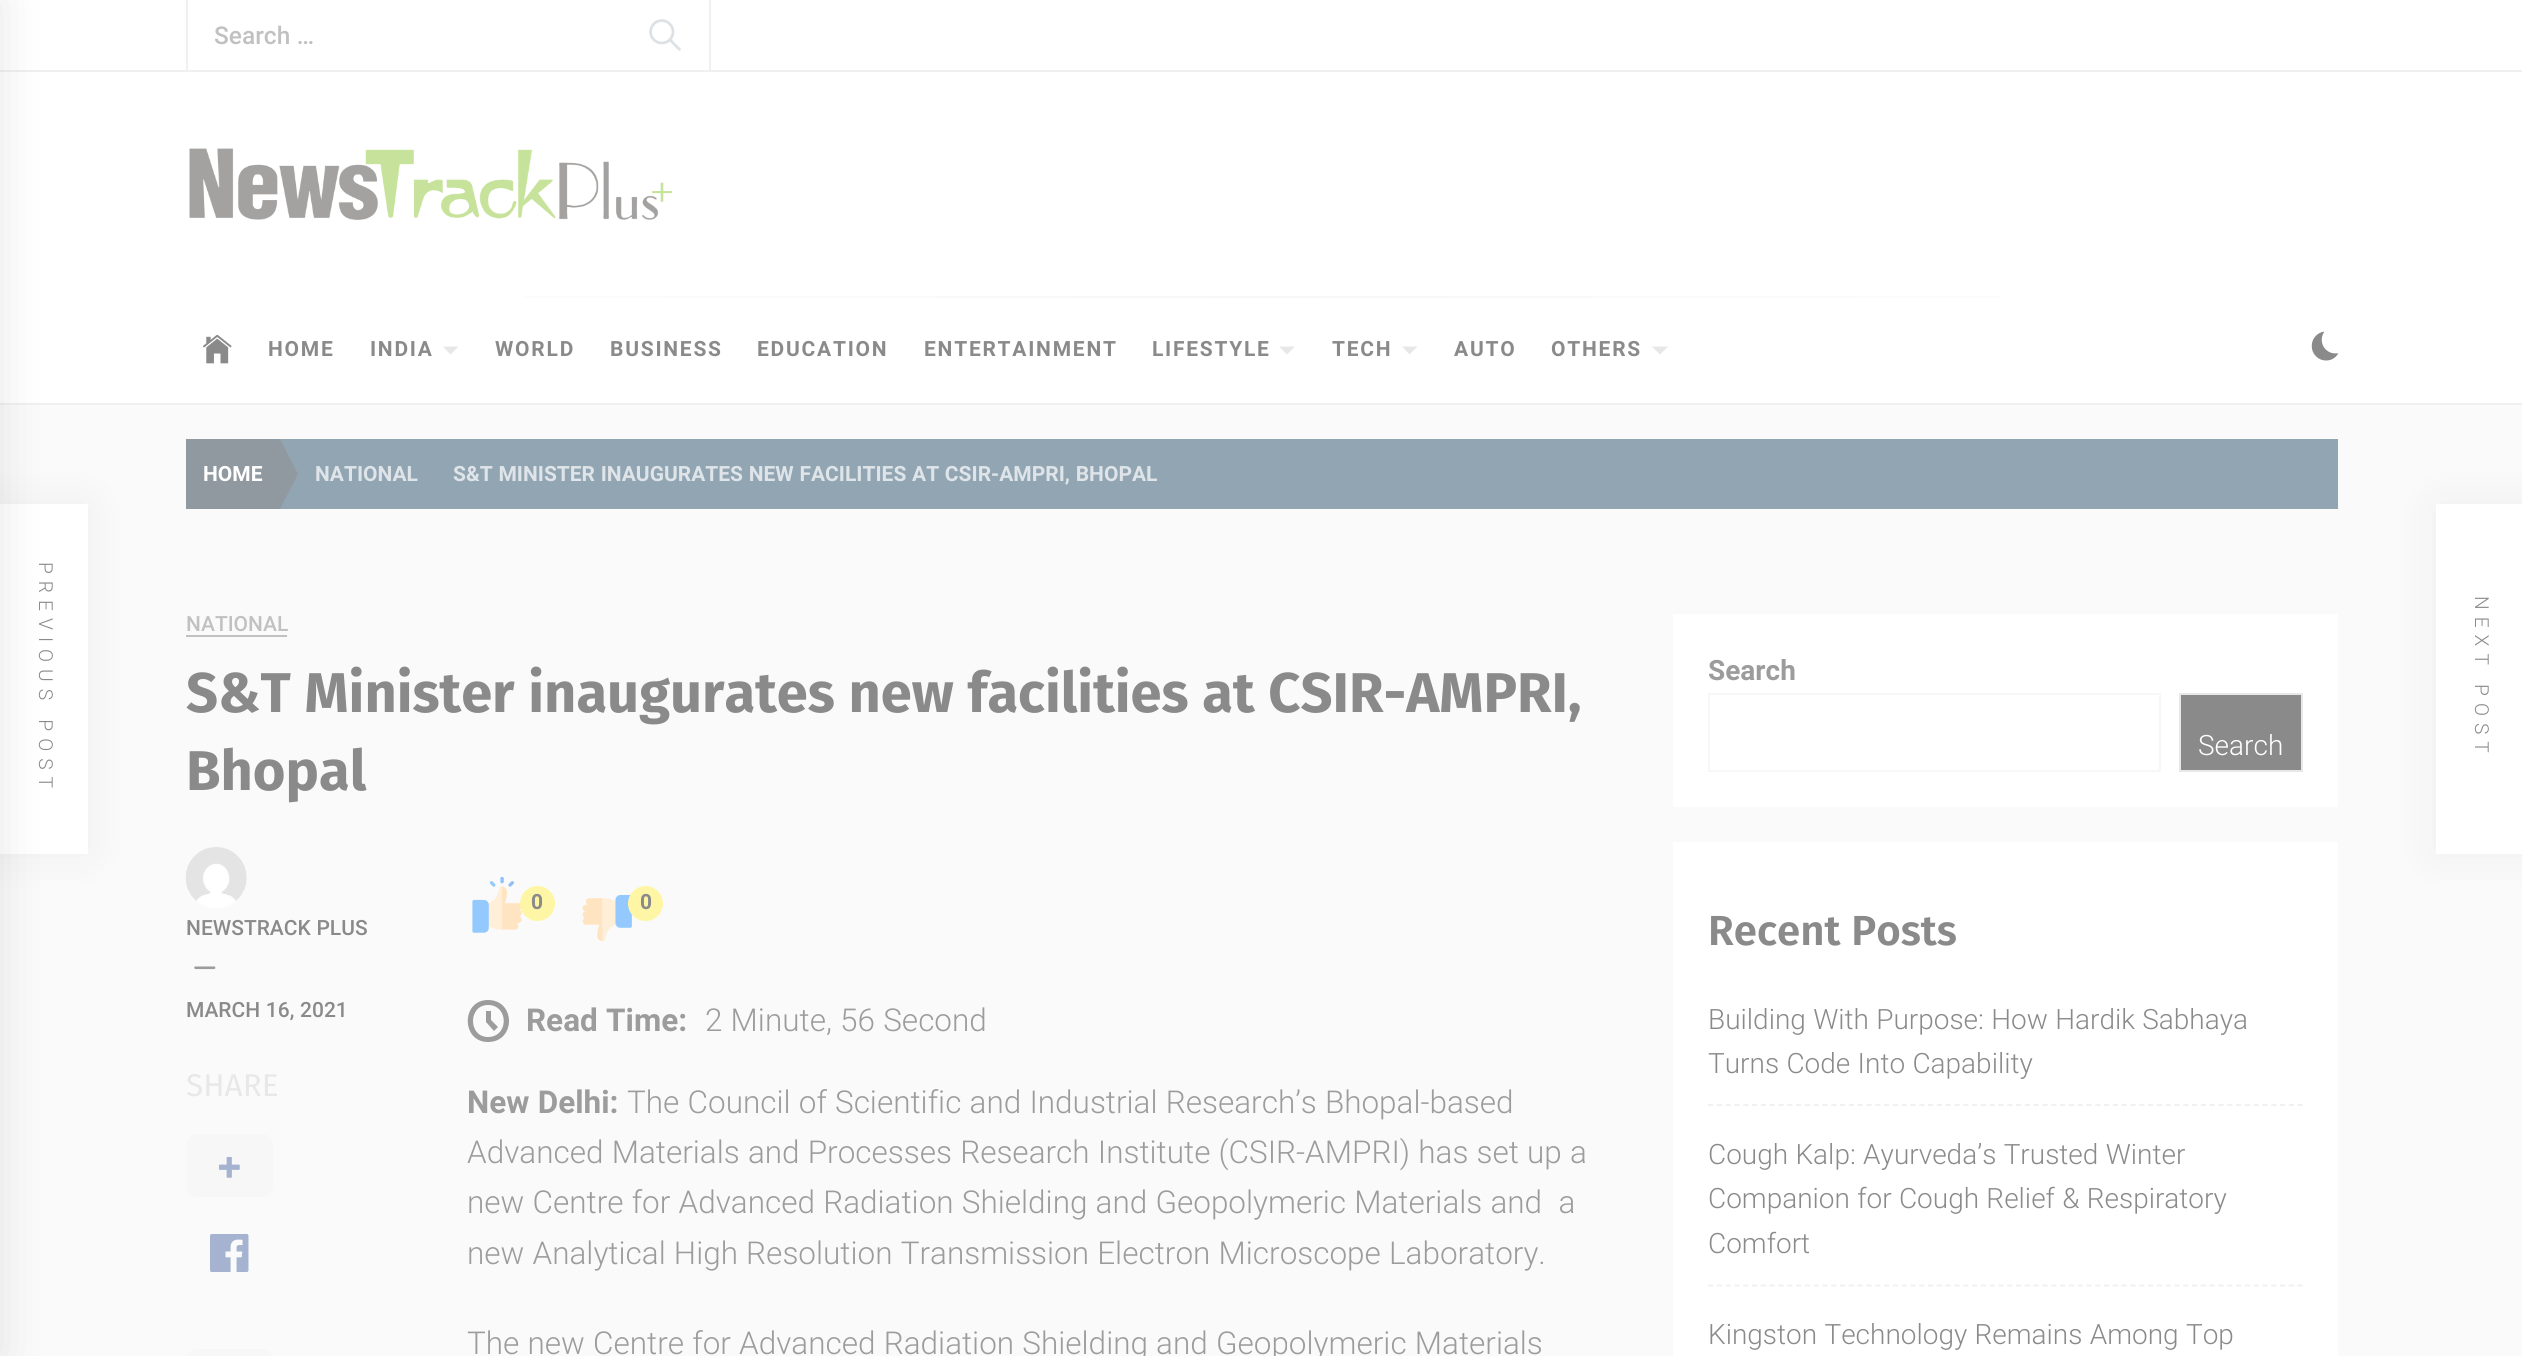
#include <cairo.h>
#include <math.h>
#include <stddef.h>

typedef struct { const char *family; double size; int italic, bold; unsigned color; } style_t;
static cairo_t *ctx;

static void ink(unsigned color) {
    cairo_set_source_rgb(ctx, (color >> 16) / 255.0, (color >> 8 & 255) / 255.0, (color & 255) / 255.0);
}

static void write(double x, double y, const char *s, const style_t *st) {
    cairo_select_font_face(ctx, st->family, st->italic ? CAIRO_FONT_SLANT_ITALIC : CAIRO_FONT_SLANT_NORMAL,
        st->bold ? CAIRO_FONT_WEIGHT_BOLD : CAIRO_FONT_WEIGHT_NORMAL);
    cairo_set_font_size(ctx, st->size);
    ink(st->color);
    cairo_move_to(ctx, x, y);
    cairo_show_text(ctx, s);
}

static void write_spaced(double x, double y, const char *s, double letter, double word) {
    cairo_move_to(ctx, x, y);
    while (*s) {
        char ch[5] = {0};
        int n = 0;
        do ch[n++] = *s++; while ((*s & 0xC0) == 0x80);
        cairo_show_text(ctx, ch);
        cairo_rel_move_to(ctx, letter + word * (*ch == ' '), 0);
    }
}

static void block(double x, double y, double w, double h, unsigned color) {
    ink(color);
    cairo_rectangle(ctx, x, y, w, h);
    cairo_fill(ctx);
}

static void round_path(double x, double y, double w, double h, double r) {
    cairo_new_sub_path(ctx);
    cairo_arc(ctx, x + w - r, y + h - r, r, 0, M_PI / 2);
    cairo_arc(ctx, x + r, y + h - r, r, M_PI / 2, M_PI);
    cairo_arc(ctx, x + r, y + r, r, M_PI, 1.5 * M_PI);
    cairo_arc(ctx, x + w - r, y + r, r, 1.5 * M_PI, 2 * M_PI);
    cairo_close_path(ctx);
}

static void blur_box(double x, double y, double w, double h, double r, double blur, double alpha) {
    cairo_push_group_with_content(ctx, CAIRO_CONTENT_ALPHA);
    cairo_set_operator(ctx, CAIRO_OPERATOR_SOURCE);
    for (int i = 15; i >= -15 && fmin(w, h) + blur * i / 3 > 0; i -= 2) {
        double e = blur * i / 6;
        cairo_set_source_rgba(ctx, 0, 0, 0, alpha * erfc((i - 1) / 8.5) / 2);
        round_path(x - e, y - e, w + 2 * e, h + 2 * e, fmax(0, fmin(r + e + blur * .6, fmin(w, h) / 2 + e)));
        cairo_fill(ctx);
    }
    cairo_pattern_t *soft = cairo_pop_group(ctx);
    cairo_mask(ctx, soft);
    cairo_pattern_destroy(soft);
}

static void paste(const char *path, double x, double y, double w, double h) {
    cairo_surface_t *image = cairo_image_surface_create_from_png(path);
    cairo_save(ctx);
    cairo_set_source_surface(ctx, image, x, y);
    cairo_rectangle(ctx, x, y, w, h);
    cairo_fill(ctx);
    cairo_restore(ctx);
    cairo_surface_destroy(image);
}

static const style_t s1 = {"Roboto", 21, 0, 1, 0xffffff};
static const style_t s2 = {"Roboto", 21, 0, 1, 0xdee4e8};
static const style_t s3 = {"Fira Sans", 31.5, 0, 0, 0xe8e8e8};
static const style_t s4 = {"Roboto", 21, 0, 1, 0x8a8a8a};
static const style_t s5 = {"Roboto Medium", 21, 0, 0, 0xc1c1c1};
static const style_t s6 = {"Fira Sans", 56, 0, 1, 0x8a8a8a};
static const style_t s7 = {"Roboto", 28, 0, 1, 0x9c9c9c};
static const style_t s8 = {"Roboto Light", 28, 0, 0, 0xffffff};
static const style_t s9 = {"Roboto Light", 28, 0, 0, 0x8a8a8a};

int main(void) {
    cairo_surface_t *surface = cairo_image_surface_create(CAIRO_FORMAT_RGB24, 2522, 1356);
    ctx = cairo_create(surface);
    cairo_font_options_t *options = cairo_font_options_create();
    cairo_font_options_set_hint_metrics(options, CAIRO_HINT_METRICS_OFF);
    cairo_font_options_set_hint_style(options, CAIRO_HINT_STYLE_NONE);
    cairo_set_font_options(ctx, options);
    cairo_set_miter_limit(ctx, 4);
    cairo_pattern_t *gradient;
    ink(0xfafafa);
    cairo_paint(ctx);
    block(0, 0, 2522, 403, 0xffffff);
    block(0, 70, 2522, 2, 0xf0f0f0);
    block(0, 403, 2522, 2, 0xf0f0f0);
    ink(0x8a8a8a);
    blur_box(-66, 504, 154, 350, 0, 22, 0.1);
    block(0, 504, 88, 350, 0xffffff);
    ink(0x000000);
    blur_box(-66, 0, 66, 1356, 0, 22, 0.1);
    block(709, 0, 2, 70, 0xf0f0f0);
    block(186, 0, 2, 70, 0xf0f0f0);
    cairo_select_font_face(ctx, "Roboto Medium", CAIRO_FONT_SLANT_NORMAL, CAIRO_FONT_WEIGHT_NORMAL);
    cairo_set_font_size(ctx, 24.5);
    ink(0xc1c1c1);
    write_spaced(214, 44, "Search …", 0, 0.5);
    paste("pic1.png", 649, 19, 32, 32);
    paste("pic2.png", 189, 148, 484, 72);
    gradient = cairo_pattern_create_linear(2338, 297, 186, 297);
    cairo_pattern_add_color_stop_rgba(gradient, 0, 1, 1, 1, 1);
    cairo_pattern_add_color_stop_rgba(gradient, 0.5, 0.969, 0.969, 0.969, 1);
    cairo_pattern_add_color_stop_rgba(gradient, 1, 1, 1, 1, 1);
    cairo_set_source(ctx, gradient);
    cairo_pattern_destroy(gradient);
    cairo_rectangle(ctx, 522, 296, 1480, 2);
    cairo_fill(ctx);
    paste("pic3.png", 203, 334, 29, 30);
    cairo_select_font_face(ctx, "Roboto", CAIRO_FONT_SLANT_NORMAL, CAIRO_FONT_WEIGHT_BOLD);
    cairo_set_font_size(ctx, 21);
    ink(0x8a8a8a);
    write_spaced(268, 356, "HOME", 1.75, 0);
    write_spaced(370, 356, "INDIA", 1.75, 0);
    ink(0xe7e7e7);
    cairo_new_path(ctx);
    cairo_move_to(ctx, 443, 346.5);
    cairo_line_to(ctx, 458.5, 346.5);
    cairo_line_to(ctx, 450.5, 354.5);
    cairo_close_path(ctx);
    cairo_fill(ctx);
    ink(0x8a8a8a);
    write_spaced(495, 356, "WORLD", 1.75, 0);
    write_spaced(610, 356, "BUSINESS", 1.75, 0);
    write_spaced(757, 356, "EDUCATION", 1.75, 0);
    write_spaced(924, 356, "ENTERTAINMENT", 1.75, 0);
    write_spaced(1152, 356, "LIFESTYLE", 1.75, 0);
    ink(0xe7e7e7);
    cairo_new_path(ctx);
    cairo_move_to(ctx, 1279, 346.5);
    cairo_line_to(ctx, 1295, 346.5);
    cairo_line_to(ctx, 1287, 354.5);
    cairo_close_path(ctx);
    cairo_fill(ctx);
    ink(0x8a8a8a);
    write_spaced(1332, 356, "TECH", 1.75, 0);
    ink(0xe7e7e7);
    cairo_new_path(ctx);
    cairo_move_to(ctx, 1402, 346.5);
    cairo_line_to(ctx, 1417.5, 346.5);
    cairo_line_to(ctx, 1409.5, 354.5);
    cairo_close_path(ctx);
    cairo_fill(ctx);
    ink(0x8a8a8a);
    write_spaced(1454, 356, "AUTO", 1.75, 0);
    write_spaced(1551, 356, "OTHERS", 1.75, 0);
    ink(0xe7e7e7);
    cairo_new_path(ctx);
    cairo_move_to(ctx, 1652, 346.5);
    cairo_line_to(ctx, 1668, 346.5);
    cairo_line_to(ctx, 1660, 354.5);
    cairo_close_path(ctx);
    cairo_fill(ctx);
    paste("pic4.png", 2311, 331, 28, 30);
    block(280, 439, 2058, 70, 0x92a5b3);
    block(186, 439, 94, 70, 0x9099a0);
    write(203, 481, "HOME", &s1);
    ink(0x9099a0);
    cairo_new_path(ctx);
    cairo_move_to(ctx, 280, 509);
    cairo_line_to(ctx, 280, 439);
    cairo_line_to(ctx, 298, 474);
    cairo_close_path(ctx);
    cairo_fill(ctx);
    write(315, 481, "NATIONAL", &s2);
    write_spaced(453, 481, "S&T MINISTER INAUGURATES NEW FACILITIES AT CSIR-AMPRI, BHOPAL", 0, 0.5);
    cairo_select_font_face(ctx, "Roboto Light", CAIRO_FONT_SLANT_NORMAL, CAIRO_FONT_WEIGHT_NORMAL);
    cairo_set_font_size(ctx, 19.25);
    ink(0x8a8a8a);
    cairo_save(ctx);
    cairo_translate(ctx, 39, 562);
    cairo_rotate(ctx, 90 * M_PI / 180);
    write_spaced(0, 0, "PREVIOUS POST", 7, 0.5);
    cairo_restore(ctx);
    ink(0x8a8a8a);
    blur_box(2436, 504, 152, 350, 0, 22, 0.1);
    block(2436, 504, 86, 350, 0xffffff);
    ink(0x8a8a8a);
    cairo_save(ctx);
    cairo_translate(ctx, 2475, 596);
    cairo_rotate(ctx, 90 * M_PI / 180);
    write_spaced(0, 0, "NEXT POST", 7, 0.5);
    cairo_restore(ctx);
    paste("pic5.png", 185, 847, 62, 61);
    cairo_select_font_face(ctx, "Roboto Medium", CAIRO_FONT_SLANT_NORMAL, CAIRO_FONT_WEIGHT_NORMAL);
    cairo_set_font_size(ctx, 21);
    write_spaced(186, 935, "NEWSTRACK PLUS", 0, 0.5);
    paste("pic6.png", 194, 966, 22, 4);
    write_spaced(186, 1017, "MARCH 16, 2021", 0, 0.5);
    write(186, 1096, "SHARE", &s3);
    ink(0xf7f7f7);
    round_path(186, 1134, 87, 63, 11);
    cairo_fill(ctx);
    paste("pic7.png", 219, 1157, 21, 21);
    paste("pic8.png", 210, 1234, 39, 38);
    round_path(186, 1349, 87, 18, 11);
    cairo_fill(ctx);
    paste("pic9.png", 472, 877, 50, 56);
    ink(0xfff6a5);
    cairo_arc(ctx, 537.5, 903.5, 17.5, 0, 2 * M_PI);
    cairo_fill(ctx);
    write(531, 909, "0", &s4);
    paste("pic10.png", 582, 895, 50, 47);
    ink(0xfff6a5);
    cairo_arc(ctx, 645.5, 903.5, 17.5, 0, 2 * M_PI);
    cairo_fill(ctx);
    write(640, 909, "0", &s4);
    ink(0x9c9c9c);
    cairo_new_path(ctx);
    cairo_move_to(ctx, 494, 1031);
    cairo_line_to(ctx, 486, 1022);
    cairo_line_to(ctx, 486, 1011);
    cairo_line_to(ctx, 491, 1011);
    cairo_line_to(ctx, 491, 1020);
    cairo_line_to(ctx, 498, 1027);
    cairo_close_path(ctx);
    cairo_move_to(ctx, 488, 1000);
    cairo_curve_to(ctx, 461, 1000, 461, 1042, 488, 1042);
    cairo_curve_to(ctx, 516, 1042, 516, 1000, 488, 1000);
    cairo_close_path(ctx);
    cairo_move_to(ctx, 488, 1037);
    cairo_curve_to(ctx, 468, 1037, 468, 1005, 488, 1005);
    cairo_curve_to(ctx, 509, 1005, 509, 1037, 488, 1037);
    cairo_close_path(ctx);
    cairo_fill(ctx);
    cairo_set_font_size(ctx, 31.5);
    write_spaced(526, 1031, "Read Time:", 0, 0.5);
    cairo_select_font_face(ctx, "Roboto Light", CAIRO_FONT_SLANT_NORMAL, CAIRO_FONT_WEIGHT_NORMAL);
    write_spaced(705, 1031, "2 Minute, 56 Second", 0, 0.5);
    cairo_select_font_face(ctx, "Roboto", CAIRO_FONT_SLANT_NORMAL, CAIRO_FONT_WEIGHT_BOLD);
    write_spaced(467, 1113, "New Delhi:", 0, 0.5);
    cairo_select_font_face(ctx, "Roboto Light", CAIRO_FONT_SLANT_NORMAL, CAIRO_FONT_WEIGHT_NORMAL);
    write_spaced(627, 1113, "The Council of Scientific and Industrial Research’s Bhopal-based", 0, 0.5);
    write_spaced(467, 1163, "Advanced Materials and Processes Research Institute (CSIR-AMPRI) has set up a", 0, 0.5);
    write_spaced(467, 1213, "new Centre for Advanced Radiation Shielding and Geopolymeric Materials and  a", 0, 0.5);
    write_spaced(467, 1264, "new Analytical High Resolution Transmission Electron Microscope Laboratory.", 0, 0.5);
    write_spaced(467, 1354, "The new Centre for Advanced Radiation Shielding and Geopolymeric Materials", 0, 0.5);
    block(186, 635, 101, 2, 0xc1c1c1);
    write(186, 631, "NATIONAL", &s5);
    cairo_select_font_face(ctx, "Fira Sans", CAIRO_FONT_SLANT_NORMAL, CAIRO_FONT_WEIGHT_BOLD);
    cairo_set_font_size(ctx, 56);
    ink(0x8a8a8a);
    write_spaced(186, 712, "S&T Minister inaugurates new facilities at CSIR-AMPRI,", 0, 0.5);
    write(186, 790, "Bhopal", &s6);
    block(1673, 614, 665, 193, 0xffffff);
    write(1708, 680, "Search", &s7);
    cairo_rectangle(ctx, 1709, 694, 451, 77);
    ink(0xf7f7f7);
    cairo_stroke(ctx);
    ink(0x8a8a8a);
    cairo_rectangle(ctx, 2180, 694, 122, 77);
    cairo_fill_preserve(ctx);
    ink(0xe8e8e8);
    cairo_stroke(ctx);
    write(2198, 755, "Search", &s8);
    block(1673, 842, 665, 514, 0xffffff);
    cairo_select_font_face(ctx, "Fira Sans SemiBold", CAIRO_FONT_SLANT_NORMAL, CAIRO_FONT_WEIGHT_NORMAL);
    cairo_set_font_size(ctx, 42);
    ink(0x8a8a8a);
    write_spaced(1708, 945, "Recent Posts", 0, 0.5);
    cairo_new_path(ctx);
    cairo_move_to(ctx, 1708, 1105);
    cairo_line_to(ctx, 2303, 1105);
    ink(0xf0f0f0);
    cairo_set_line_width(ctx, 1.8);
    cairo_set_dash(ctx, (double[]){5.25, 3.55}, 2, 0);
    cairo_stroke(ctx);
    cairo_select_font_face(ctx, "Roboto Light", CAIRO_FONT_SLANT_NORMAL, CAIRO_FONT_WEIGHT_NORMAL);
    cairo_set_font_size(ctx, 28);
    ink(0x8a8a8a);
    write_spaced(1708, 1029, "Building With Purpose: How Hardik Sabhaya", 0, 0.5);
    write_spaced(1708, 1073, "Turns Code Into Capability", 0, 0.5);
    cairo_new_path(ctx);
    cairo_move_to(ctx, 1708, 1285.5);
    cairo_line_to(ctx, 2303, 1285.5);
    ink(0xf0f0f0);
    cairo_stroke(ctx);
    ink(0x8a8a8a);
    write_spaced(1708, 1164, "Cough Kalp: Ayurveda’s Trusted Winter", 0, 0.5);
    write_spaced(1708, 1208, "Companion for Cough Relief & Respiratory", 0, 0.5);
    write(1708, 1253, "Comfort", &s9);
    write_spaced(1708, 1344, "Kingston Technology Remains Among Top", 0, 0.5);
    cairo_surface_write_to_png(surface, "screenshot.png");
    cairo_font_options_destroy(options);
    cairo_destroy(ctx);
    cairo_surface_destroy(surface);
    return 0;
}
